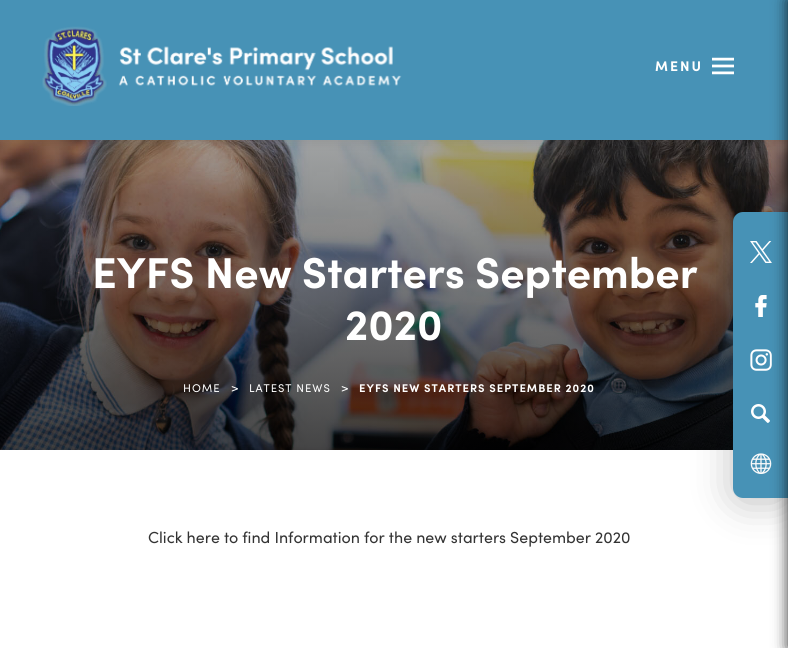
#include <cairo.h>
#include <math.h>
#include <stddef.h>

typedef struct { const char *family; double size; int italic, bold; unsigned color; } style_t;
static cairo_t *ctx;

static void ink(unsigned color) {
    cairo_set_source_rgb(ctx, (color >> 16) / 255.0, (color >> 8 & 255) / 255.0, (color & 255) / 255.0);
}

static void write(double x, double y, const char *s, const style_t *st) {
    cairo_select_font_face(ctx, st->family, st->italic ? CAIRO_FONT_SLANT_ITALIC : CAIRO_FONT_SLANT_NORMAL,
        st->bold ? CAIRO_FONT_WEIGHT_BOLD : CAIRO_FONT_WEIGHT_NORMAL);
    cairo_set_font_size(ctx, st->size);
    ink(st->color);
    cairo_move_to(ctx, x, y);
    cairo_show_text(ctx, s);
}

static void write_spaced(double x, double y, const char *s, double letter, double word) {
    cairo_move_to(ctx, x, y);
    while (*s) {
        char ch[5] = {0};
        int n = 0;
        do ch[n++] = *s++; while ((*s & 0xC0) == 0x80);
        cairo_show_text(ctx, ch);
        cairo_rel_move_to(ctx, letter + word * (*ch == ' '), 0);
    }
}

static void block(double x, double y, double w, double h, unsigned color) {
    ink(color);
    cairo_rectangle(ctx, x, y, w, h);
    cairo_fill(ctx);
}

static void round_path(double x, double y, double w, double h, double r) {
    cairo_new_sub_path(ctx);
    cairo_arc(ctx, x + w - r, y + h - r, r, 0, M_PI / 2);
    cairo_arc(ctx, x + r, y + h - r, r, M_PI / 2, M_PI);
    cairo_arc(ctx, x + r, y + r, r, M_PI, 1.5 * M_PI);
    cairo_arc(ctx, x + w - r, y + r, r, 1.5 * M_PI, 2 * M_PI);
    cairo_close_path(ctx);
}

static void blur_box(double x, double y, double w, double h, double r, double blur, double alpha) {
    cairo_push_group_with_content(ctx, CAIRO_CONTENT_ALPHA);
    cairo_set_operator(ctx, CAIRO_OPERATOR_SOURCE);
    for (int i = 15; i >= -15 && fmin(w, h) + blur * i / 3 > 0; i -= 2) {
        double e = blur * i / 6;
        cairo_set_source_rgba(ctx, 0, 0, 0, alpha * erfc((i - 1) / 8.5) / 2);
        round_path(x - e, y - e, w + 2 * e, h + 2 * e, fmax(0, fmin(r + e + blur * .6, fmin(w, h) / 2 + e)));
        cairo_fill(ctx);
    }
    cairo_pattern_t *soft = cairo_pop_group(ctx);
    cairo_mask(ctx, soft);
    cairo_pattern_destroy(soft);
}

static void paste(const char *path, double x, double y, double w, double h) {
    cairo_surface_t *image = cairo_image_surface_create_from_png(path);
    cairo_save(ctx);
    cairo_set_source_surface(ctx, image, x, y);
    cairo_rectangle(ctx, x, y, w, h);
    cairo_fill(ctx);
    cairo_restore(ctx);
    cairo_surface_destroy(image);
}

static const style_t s1 = {"Sofia", 43.25, 0, 1, 0xffffff};
static const style_t s2 = {"Sofia", 16, 0, 0, 0x333333};

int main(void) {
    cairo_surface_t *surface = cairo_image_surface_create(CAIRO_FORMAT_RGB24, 788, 648);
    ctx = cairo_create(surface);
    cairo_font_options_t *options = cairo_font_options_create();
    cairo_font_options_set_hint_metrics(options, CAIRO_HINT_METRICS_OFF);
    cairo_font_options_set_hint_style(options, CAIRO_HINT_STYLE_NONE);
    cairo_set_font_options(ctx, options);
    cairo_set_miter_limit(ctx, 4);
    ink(0xffffff);
    cairo_paint(ctx);
    paste("pic3.png", 0, 140, 788, 310);
    ink(0x000000);
    blur_box(0, 1, 788, 140, 0, 5.5, 0.1);
    block(0, 0, 788, 140, 0x4792b6);
    paste("pic1.png", 42, 26, 360, 80);
    cairo_select_font_face(ctx, "Sofia", CAIRO_FONT_SLANT_NORMAL, CAIRO_FONT_WEIGHT_BOLD);
    cairo_set_font_size(ctx, 14);
    ink(0xffffff);
    write_spaced(655, 71, "MENU", 2, 0);
    paste("pic2.png", 712, 57, 22, 18);
    ink(0x000000);
    blur_box(733, 216, 55, 286, 10, 20, 0.25);
    ink(0x4792b6);
    cairo_new_path(ctx);
    cairo_move_to(ctx, 743, 212);
    cairo_line_to(ctx, 788, 212);
    cairo_line_to(ctx, 788, 498);
    cairo_line_to(ctx, 743, 498);
    cairo_curve_to(ctx, 737.5, 498, 733, 493.5, 733, 488);
    cairo_line_to(ctx, 733, 222);
    cairo_curve_to(ctx, 733, 216.5, 737.5, 212, 743, 212);
    cairo_close_path(ctx);
    cairo_fill(ctx);
    paste("pic4.png", 750, 241, 22, 22);
    paste("pic5.png", 755, 295, 12, 22);
    paste("pic6.png", 750, 349, 22, 22);
    paste("pic7.png", 751, 404, 19, 19);
    paste("pic8.png", 750, 453, 22, 21);
    ink(0x000000);
    blur_box(788, 0, 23, 648, 0, 7.5, 0.8);
    write(92, 288, "EYFS New Starters September", &s1);
    write(345, 340, "2020", &s1);
    cairo_select_font_face(ctx, "Sofia", CAIRO_FONT_SLANT_NORMAL, CAIRO_FONT_WEIGHT_NORMAL);
    cairo_set_font_size(ctx, 11.2);
    write_spaced(183, 392, "HOME", 1, 0);
    cairo_set_font_size(ctx, 12);
    write_spaced(231, 392, ">", 1, 0);
    cairo_set_font_size(ctx, 11.2);
    write_spaced(249, 392, "LATEST NEWS", 1, 0);
    cairo_set_font_size(ctx, 12);
    write_spaced(341, 392, ">", 1, 0);
    cairo_select_font_face(ctx, "Sofia", CAIRO_FONT_SLANT_NORMAL, CAIRO_FONT_WEIGHT_BOLD);
    cairo_set_font_size(ctx, 11.2);
    write_spaced(359, 392, "EYFS NEW STARTERS SEPTEMBER 2020", 1, 0);
    write(148, 543, "Click here to find Information for the new starters September 2020", &s2);
    cairo_surface_write_to_png(surface, "screenshot.png");
    cairo_font_options_destroy(options);
    cairo_destroy(ctx);
    cairo_surface_destroy(surface);
    return 0;
}
